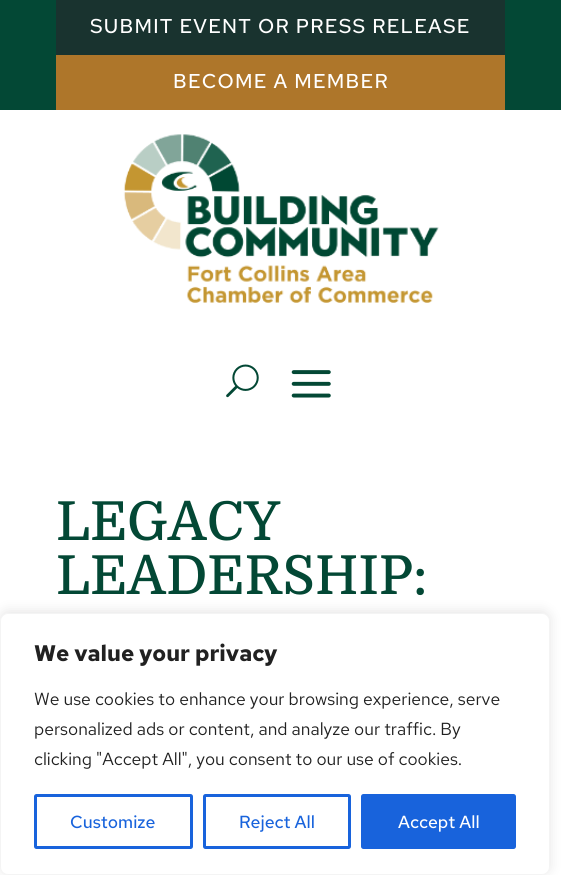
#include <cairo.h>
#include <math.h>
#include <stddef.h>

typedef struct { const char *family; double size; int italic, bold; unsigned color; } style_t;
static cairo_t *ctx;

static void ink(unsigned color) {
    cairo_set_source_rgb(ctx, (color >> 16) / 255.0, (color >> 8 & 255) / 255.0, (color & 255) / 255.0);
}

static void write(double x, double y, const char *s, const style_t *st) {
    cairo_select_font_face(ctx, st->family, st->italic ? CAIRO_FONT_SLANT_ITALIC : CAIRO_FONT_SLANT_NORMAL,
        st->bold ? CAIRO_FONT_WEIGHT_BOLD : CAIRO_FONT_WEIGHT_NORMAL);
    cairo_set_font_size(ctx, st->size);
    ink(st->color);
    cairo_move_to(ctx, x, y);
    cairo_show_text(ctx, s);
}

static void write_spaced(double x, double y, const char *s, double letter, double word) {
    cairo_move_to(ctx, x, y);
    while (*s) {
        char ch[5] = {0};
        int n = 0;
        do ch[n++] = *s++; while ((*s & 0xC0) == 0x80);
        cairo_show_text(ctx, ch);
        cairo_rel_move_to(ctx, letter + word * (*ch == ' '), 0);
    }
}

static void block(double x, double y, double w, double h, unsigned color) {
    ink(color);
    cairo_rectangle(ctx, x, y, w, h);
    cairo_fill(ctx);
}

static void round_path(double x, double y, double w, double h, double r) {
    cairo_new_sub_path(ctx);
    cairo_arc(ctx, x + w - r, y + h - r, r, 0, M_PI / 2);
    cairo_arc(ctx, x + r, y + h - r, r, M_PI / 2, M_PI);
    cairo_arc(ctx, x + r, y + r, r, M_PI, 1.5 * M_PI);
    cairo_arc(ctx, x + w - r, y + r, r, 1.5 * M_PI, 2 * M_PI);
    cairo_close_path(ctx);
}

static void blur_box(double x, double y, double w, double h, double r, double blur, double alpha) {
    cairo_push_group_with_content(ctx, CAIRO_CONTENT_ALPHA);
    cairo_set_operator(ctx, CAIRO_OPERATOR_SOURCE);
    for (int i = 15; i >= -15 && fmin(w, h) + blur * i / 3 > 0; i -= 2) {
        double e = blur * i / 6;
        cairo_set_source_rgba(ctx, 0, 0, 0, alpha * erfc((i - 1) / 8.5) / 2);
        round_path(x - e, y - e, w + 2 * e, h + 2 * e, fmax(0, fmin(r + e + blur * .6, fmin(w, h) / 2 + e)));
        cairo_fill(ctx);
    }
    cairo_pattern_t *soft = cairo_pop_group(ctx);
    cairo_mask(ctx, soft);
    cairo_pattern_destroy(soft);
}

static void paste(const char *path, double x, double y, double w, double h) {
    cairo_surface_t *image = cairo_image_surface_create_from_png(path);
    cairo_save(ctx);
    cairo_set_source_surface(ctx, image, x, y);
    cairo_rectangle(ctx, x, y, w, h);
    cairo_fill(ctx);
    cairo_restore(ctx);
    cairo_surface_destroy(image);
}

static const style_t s1 = {"Domine Medium", 53.75, 0, 0, 0x034835};
static const style_t s2 = {"Red Hat Text", 22.5, 0, 1, 0x212121};
static const style_t s3 = {"Red Hat Text", 17.5, 0, 0, 0x212121};
static const style_t s4 = {"Red Hat Text Medium", 17.5, 0, 0, 0x1863dc};
static const style_t s5 = {"Red Hat Text Medium", 17.5, 0, 0, 0xffffff};

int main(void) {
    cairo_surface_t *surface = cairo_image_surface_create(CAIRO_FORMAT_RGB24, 561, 875);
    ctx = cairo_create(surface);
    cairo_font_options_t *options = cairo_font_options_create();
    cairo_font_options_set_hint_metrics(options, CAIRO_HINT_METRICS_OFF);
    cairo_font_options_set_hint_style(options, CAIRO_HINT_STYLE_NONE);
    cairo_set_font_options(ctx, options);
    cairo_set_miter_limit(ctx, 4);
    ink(0xffffff);
    cairo_paint(ctx);
    block(0, 0, 561, 110, 0x034835);
    block(56, 0, 449, 55, 0x19332f);
    cairo_select_font_face(ctx, "Red Hat Text Medium", CAIRO_FONT_SLANT_NORMAL, CAIRO_FONT_WEIGHT_NORMAL);
    cairo_set_font_size(ctx, 20);
    ink(0xffffff);
    write_spaced(90, 33, "SUBMIT EVENT OR PRESS RELEASE", 1.25, 0);
    block(56, 55, 449, 55, 0xae762a);
    ink(0xffffff);
    write_spaced(173, 88, "BECOME A MEMBER", 1.25, 0);
    paste("pic1.png", 123, 134, 316, 169);
    paste("pic2.png", 226, 364, 33, 34);
    paste("pic3.png", 291, 370, 40, 28);
    write(56, 540, "LEGACY", &s1);
    write(56, 594, "LEADERSHIP:", &s1);
    ink(0xacabab);
    blur_box(0, 611, 550, 263, 8, 6, 0.3);
    ink(0xffffff);
    round_path(0.5, 613.5, 549, 261, 7.5);
    cairo_fill_preserve(ctx);
    ink(0xf4f4f4);
    cairo_set_line_width(ctx, 1);
    cairo_stroke(ctx);
    write(34, 661, "We value your privacy", &s2);
    write(34, 705, "We use cookies to enhance your browsing experience, serve", &s3);
    write(34, 735, "personalized ads or content, and analyze our traffic. By", &s3);
    write(34, 765, "clicking \"Accept All\", you consent to our use of cookies.", &s3);
    round_path(35.5, 795.5, 156, 52, 1);
    ink(0x1863dc);
    cairo_set_line_width(ctx, 3);
    cairo_stroke(ctx);
    write(70, 828, "Customize", &s4);
    round_path(204.5, 795.5, 145, 52, 1);
    cairo_stroke(ctx);
    write(239, 828, "Reject All", &s4);
    round_path(362.5, 795.5, 152, 52, 1);
    cairo_fill_preserve(ctx);
    cairo_stroke(ctx);
    write(398, 828, "Accept All", &s5);
    cairo_surface_write_to_png(surface, "screenshot.png");
    cairo_font_options_destroy(options);
    cairo_destroy(ctx);
    cairo_surface_destroy(surface);
    return 0;
}
